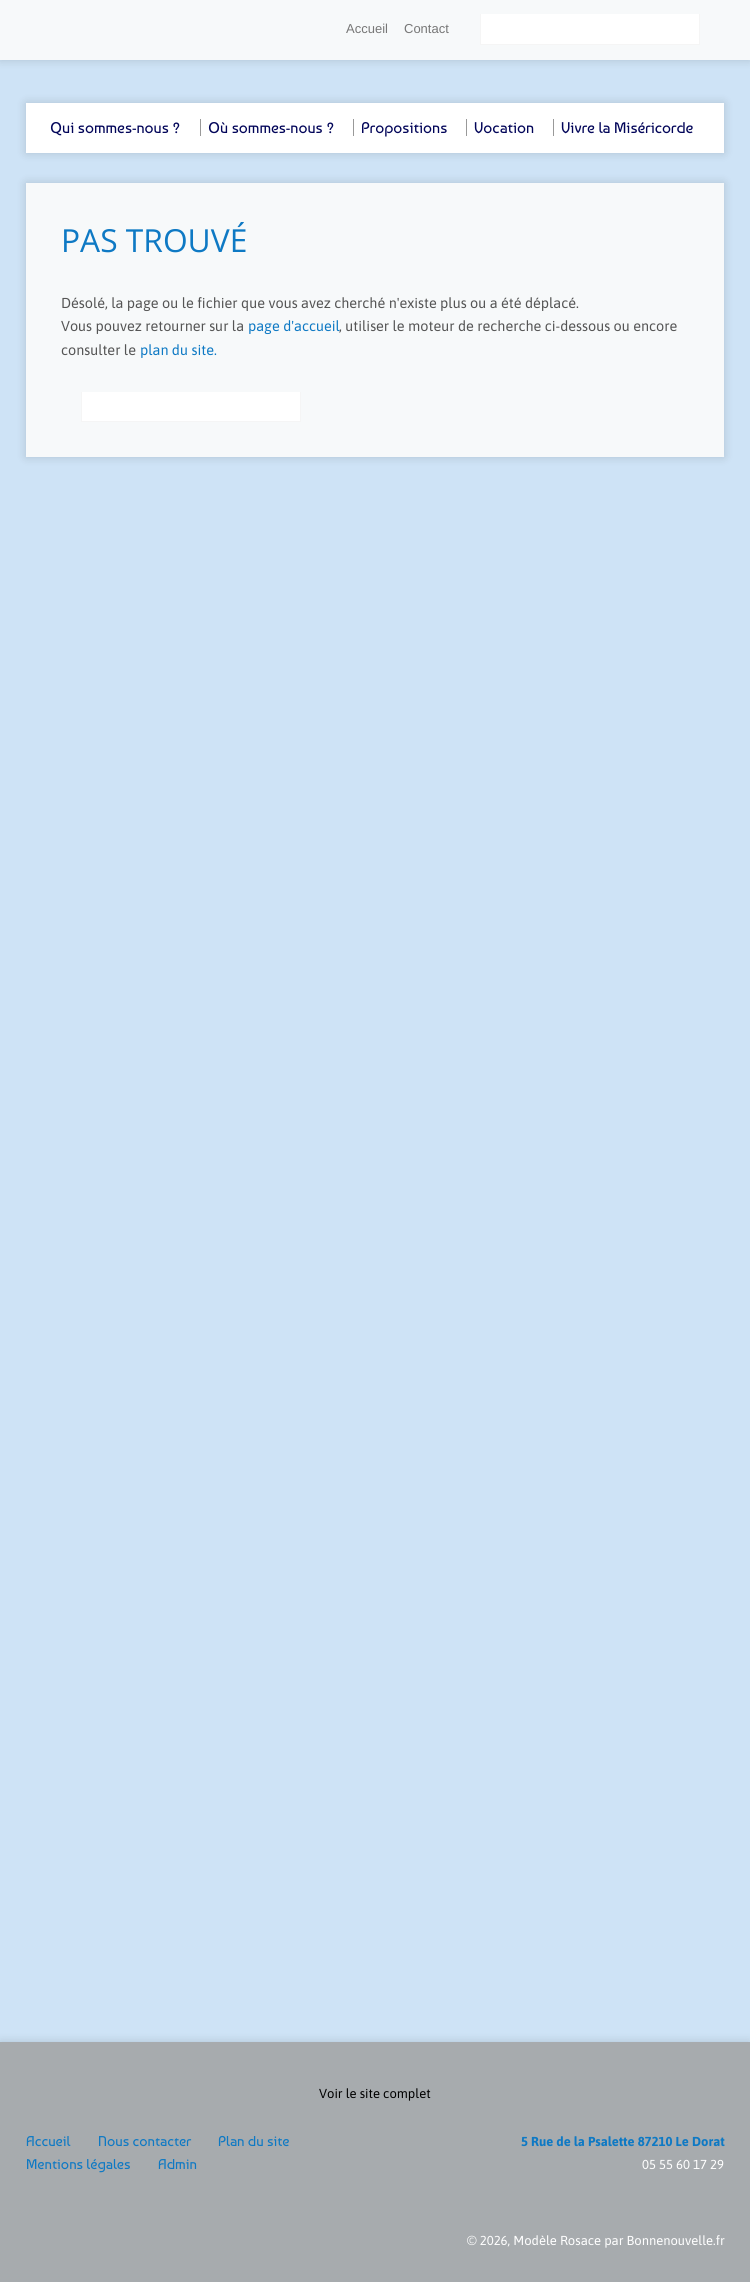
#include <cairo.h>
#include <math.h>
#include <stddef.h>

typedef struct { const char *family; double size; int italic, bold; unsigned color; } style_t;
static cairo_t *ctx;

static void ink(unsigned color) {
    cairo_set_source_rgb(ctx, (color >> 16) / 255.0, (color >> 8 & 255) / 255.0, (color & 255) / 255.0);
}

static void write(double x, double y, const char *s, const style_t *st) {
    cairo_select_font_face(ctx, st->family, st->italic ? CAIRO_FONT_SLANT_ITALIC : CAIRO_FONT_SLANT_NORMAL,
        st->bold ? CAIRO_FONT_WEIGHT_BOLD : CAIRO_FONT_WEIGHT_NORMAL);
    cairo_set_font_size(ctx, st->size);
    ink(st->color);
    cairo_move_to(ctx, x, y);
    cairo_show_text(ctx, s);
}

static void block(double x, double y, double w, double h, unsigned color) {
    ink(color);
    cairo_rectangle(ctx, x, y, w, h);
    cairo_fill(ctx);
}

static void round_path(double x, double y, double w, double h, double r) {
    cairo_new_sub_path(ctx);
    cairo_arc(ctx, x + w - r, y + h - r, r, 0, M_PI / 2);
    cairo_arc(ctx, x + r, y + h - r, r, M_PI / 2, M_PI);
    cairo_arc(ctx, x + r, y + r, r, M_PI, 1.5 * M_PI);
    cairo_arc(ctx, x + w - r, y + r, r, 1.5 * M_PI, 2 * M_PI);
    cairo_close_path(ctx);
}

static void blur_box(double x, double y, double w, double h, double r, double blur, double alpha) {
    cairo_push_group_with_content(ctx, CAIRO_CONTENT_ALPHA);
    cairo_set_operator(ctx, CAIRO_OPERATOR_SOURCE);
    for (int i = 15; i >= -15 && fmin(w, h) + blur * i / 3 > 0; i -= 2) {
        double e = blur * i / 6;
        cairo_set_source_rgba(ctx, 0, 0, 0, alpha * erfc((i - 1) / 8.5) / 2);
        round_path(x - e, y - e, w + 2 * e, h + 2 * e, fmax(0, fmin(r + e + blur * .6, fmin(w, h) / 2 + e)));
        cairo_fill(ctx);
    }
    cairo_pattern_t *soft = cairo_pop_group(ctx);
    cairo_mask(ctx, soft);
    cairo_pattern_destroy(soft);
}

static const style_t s1 = {"Liberation Sans", 13, 0, 0, 0x777777};
static const style_t s2 = {"Baumans", 15.5, 0, 0, 0x020559};
static const style_t s3 = {"Open Sans", 31.75, 0, 0, 0x0e79c4};
static const style_t s4 = {"Asap", 14.4, 0, 0, 0x555555};
static const style_t s5 = {"Asap", 14.4, 0, 0, 0x0e79c4};
static const style_t s6 = {"Asap", 13, 0, 0, 0x000000};
static const style_t s7 = {"Baumans", 14.25, 0, 0, 0x0e79c4};
static const style_t s8 = {"Asap", 13, 0, 1, 0x0e79c4};
static const style_t s9 = {"Asap", 13, 0, 0, 0xffffff};

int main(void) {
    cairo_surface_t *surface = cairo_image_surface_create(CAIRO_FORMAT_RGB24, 750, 2282);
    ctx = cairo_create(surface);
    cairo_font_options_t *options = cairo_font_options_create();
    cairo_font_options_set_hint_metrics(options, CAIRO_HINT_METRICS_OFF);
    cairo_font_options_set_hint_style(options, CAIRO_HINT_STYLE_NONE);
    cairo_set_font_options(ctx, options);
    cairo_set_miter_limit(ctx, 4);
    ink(0xcee3f6);
    cairo_paint(ctx);
    ink(0x000000);
    blur_box(0, 0, 750, 60, 0, 5, 0.15);
    block(0, 0, 750, 60, 0xf7f9fa);
    write(346, 33, "Accueil", &s1);
    write(404, 33, "Contact", &s1);
    block(480, 14, 220, 31, 0xffffff);
    ink(0xf5f5f5);
    cairo_new_path(ctx);
    cairo_move_to(ctx, 700, 14);
    cairo_line_to(ctx, 700, 45);
    cairo_line_to(ctx, 699, 44);
    cairo_line_to(ctx, 699, 14);
    cairo_close_path(ctx);
    cairo_fill(ctx);
    cairo_set_source_rgba(ctx, 0.588, 0.588, 0.588, 0.1);
    cairo_new_path(ctx);
    cairo_move_to(ctx, 700, 45);
    cairo_line_to(ctx, 480, 45);
    cairo_line_to(ctx, 481, 44);
    cairo_line_to(ctx, 699, 44);
    cairo_close_path(ctx);
    cairo_fill(ctx);
    cairo_new_path(ctx);
    cairo_move_to(ctx, 480, 45);
    cairo_line_to(ctx, 480, 14);
    cairo_line_to(ctx, 481, 14);
    cairo_line_to(ctx, 481, 44);
    cairo_close_path(ctx);
    cairo_fill(ctx);
    ink(0x000000);
    blur_box(26, 103, 698, 50, 0, 5, 0.15);
    block(26, 103, 698, 50, 0xffffff);
    write(50, 133, "Qui sommes-nous ?", &s2);
    block(200, 119, 1, 17, 0x999999);
    write(208, 133, "Où sommes-nous ?", &s2);
    block(353, 119, 1, 17, 0x999999);
    write(361, 133, "Propositions", &s2);
    block(466, 119, 1, 17, 0x999999);
    write(474, 133, "Vocation", &s2);
    block(553, 119, 1, 17, 0x999999);
    write(561, 133, "Vivre la Miséricorde", &s2);
    ink(0x000000);
    blur_box(26, 183, 698, 274, 0, 5, 0.15);
    block(26, 183, 698, 274, 0xf7f9fa);
    write(61, 252, "PAS TROUVÉ", &s3);
    write(61, 308, "Désolé, la page ou le fichier que vous avez cherché n'existe plus ou a été déplacé.", &s4);
    write(61, 331, "Vous pouvez retourner sur la", &s4);
    write(248, 331, "page d'accueil", &s5);
    write(339, 331, ", utiliser le moteur de recherche ci-dessous ou encore", &s4);
    write(61, 355, "consulter le", &s4);
    write(140, 355, "plan du site.", &s5);
    block(81, 392, 220, 30, 0xffffff);
    ink(0xf5f5f5);
    cairo_new_path(ctx);
    cairo_move_to(ctx, 301, 392);
    cairo_line_to(ctx, 301, 422);
    cairo_line_to(ctx, 300, 421);
    cairo_line_to(ctx, 300, 392);
    cairo_close_path(ctx);
    cairo_fill(ctx);
    cairo_set_source_rgba(ctx, 0.588, 0.588, 0.588, 0.1);
    cairo_new_path(ctx);
    cairo_move_to(ctx, 301, 422);
    cairo_line_to(ctx, 81, 422);
    cairo_line_to(ctx, 82, 421);
    cairo_line_to(ctx, 300, 421);
    cairo_close_path(ctx);
    cairo_fill(ctx);
    cairo_new_path(ctx);
    cairo_move_to(ctx, 81, 422);
    cairo_line_to(ctx, 81, 392);
    cairo_line_to(ctx, 82, 392);
    cairo_line_to(ctx, 82, 421);
    cairo_close_path(ctx);
    cairo_fill(ctx);
    ink(0x000000);
    blur_box(0, 2042, 750, 240, 0, 5, 0.15);
    block(0, 2042, 750, 240, 0xa7abae);
    write(319, 2098, "Voir le site complet", &s6);
    write(26, 2146, "Accueil", &s7);
    write(98, 2146, "Nous contacter", &s7);
    write(218, 2146, "Plan du site", &s7);
    write(26, 2169, "Mentions légales", &s7);
    write(158, 2169, "Admin", &s7);
    write(521, 2146, "5 Rue de la Psalette 87210 Le Dorat", &s8);
    write(642, 2169, "05 55 60 17 29", &s9);
    write(467, 2245, "© 2026, Modèle Rosace par Bonnenouvelle.fr", &s9);
    cairo_surface_write_to_png(surface, "screenshot.png");
    cairo_font_options_destroy(options);
    cairo_destroy(ctx);
    cairo_surface_destroy(surface);
    return 0;
}
